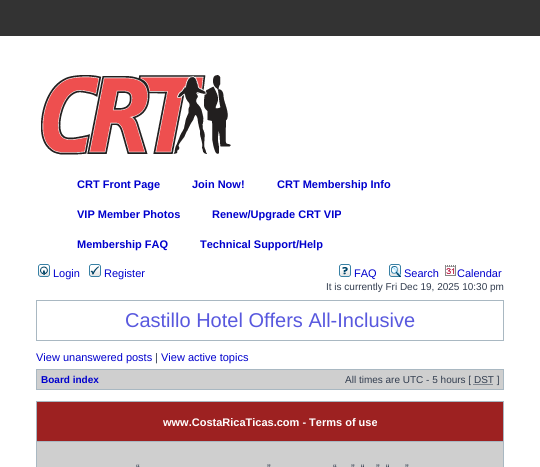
#include <cairo.h>
#include <math.h>
#include <stddef.h>

typedef struct { const char *family; double size; int italic, bold; unsigned color; } style_t;
static cairo_t *ctx;

static void ink(unsigned color) {
    cairo_set_source_rgb(ctx, (color >> 16) / 255.0, (color >> 8 & 255) / 255.0, (color & 255) / 255.0);
}

static void write(double x, double y, const char *s, const style_t *st) {
    cairo_select_font_face(ctx, st->family, st->italic ? CAIRO_FONT_SLANT_ITALIC : CAIRO_FONT_SLANT_NORMAL,
        st->bold ? CAIRO_FONT_WEIGHT_BOLD : CAIRO_FONT_WEIGHT_NORMAL);
    cairo_set_font_size(ctx, st->size);
    ink(st->color);
    cairo_move_to(ctx, x, y);
    cairo_show_text(ctx, s);
}

static void block(double x, double y, double w, double h, unsigned color) {
    ink(color);
    cairo_rectangle(ctx, x, y, w, h);
    cairo_fill(ctx);
}

static void paste(const char *path, double x, double y, double w, double h) {
    cairo_surface_t *image = cairo_image_surface_create_from_png(path);
    cairo_save(ctx);
    cairo_set_source_surface(ctx, image, x, y);
    cairo_rectangle(ctx, x, y, w, h);
    cairo_fill(ctx);
    cairo_restore(ctx);
    cairo_surface_destroy(image);
}

static const style_t s1 = {"Liberation Sans", 11, 0, 1, 0x0000cd};
static const style_t s2 = {"Liberation Sans", 11, 0, 0, 0x0000cd};
static const style_t s3 = {"Liberation Sans", 10, 0, 0, 0x323d4f};
static const style_t s4 = {"Liberation Sans", 20, 0, 0, 0x5858de};
static const style_t s5 = {"Liberation Sans", 11, 0, 0, 0x323d4f};
static const style_t s6 = {"Liberation Sans", 10, 0, 1, 0x0000cd};
static const style_t s7 = {"Liberation Sans", 11, 0, 1, 0xffffff};

int main(void) {
    cairo_surface_t *surface = cairo_image_surface_create(CAIRO_FORMAT_RGB24, 540, 467);
    ctx = cairo_create(surface);
    cairo_font_options_t *options = cairo_font_options_create();
    cairo_font_options_set_hint_metrics(options, CAIRO_HINT_METRICS_OFF);
    cairo_font_options_set_hint_style(options, CAIRO_HINT_STYLE_NONE);
    cairo_set_font_options(ctx, options);
    cairo_set_miter_limit(ctx, 4);
    ink(0x333333);
    cairo_paint(ctx);
    block(0, 36, 540, 431, 0xffffff);
    paste("pic1.png", 41, 75, 190, 80);
    write(77, 188, "CRT Front Page", &s1);
    write(192, 188, "Join Now!", &s1);
    write(277, 188, "CRT Membership Info", &s1);
    write(77, 218, "VIP Member Photos", &s1);
    write(212, 218, "Renew/Upgrade CRT VIP", &s1);
    write(77, 248, "Membership FAQ", &s1);
    write(200, 248, "Technical Support/Help", &s1);
    paste("pic2.png", 38, 264, 12, 13);
    write(53, 277, "Login", &s2);
    paste("pic3.png", 89, 264, 12, 13);
    write(104, 277, "Register", &s2);
    paste("pic4.png", 339, 264, 12, 13);
    write(354, 277, "FAQ", &s2);
    paste("pic5.png", 389, 264, 12, 13);
    write(404, 277, "Search", &s2);
    paste("pic6.png", 445, 265, 11, 11);
    write(457, 277, "Calendar", &s2);
    write(326, 290, "It is currently Fri Dec 19, 2025 10:30 pm", &s3);
    cairo_rectangle(ctx, 36.5, 300.5, 467, 40);
    ink(0xa9b8c2);
    cairo_set_line_width(ctx, 1);
    cairo_stroke(ctx);
    write(125, 327, "Castillo Hotel Offers All-Inclusive", &s4);
    write(36, 361, "View unanswered posts", &s2);
    write(155, 361, "|", &s5);
    write(161, 361, "View active topics", &s2);
    block(36, 369, 468, 21, 0xa9b8c2);
    block(37, 370, 466, 19, 0xcfcfcf);
    write(41, 383, "Board index", &s6);
    write(345, 383, "All times are UTC - 5 hours [ DST ]", &s3);
    cairo_new_path(ctx);
    cairo_move_to(ctx, 473.5, 384.5);
    cairo_line_to(ctx, 493.5, 384.5);
    cairo_set_dash(ctx, (double[]){1, 1}, 2, 0);
    cairo_stroke(ctx);
    block(36, 401, 468, 66, 0xa9b8c2);
    block(37, 402, 466, 39, 0x9d2121);
    write(163, 426, "www.CostaRicaTicas.com - Terms of use", &s7);
    block(37, 442, 466, 25, 0xcfcfcf);
    write(136, 472, "“", &s5);
    write(267, 472, "”", &s5);
    write(333, 472, "“", &s5);
    write(351, 472, "”, “", &s5);
    write(376, 472, "”, “", &s5);
    write(405, 472, "”", &s5);
    cairo_surface_write_to_png(surface, "screenshot.png");
    cairo_font_options_destroy(options);
    cairo_destroy(ctx);
    cairo_surface_destroy(surface);
    return 0;
}
